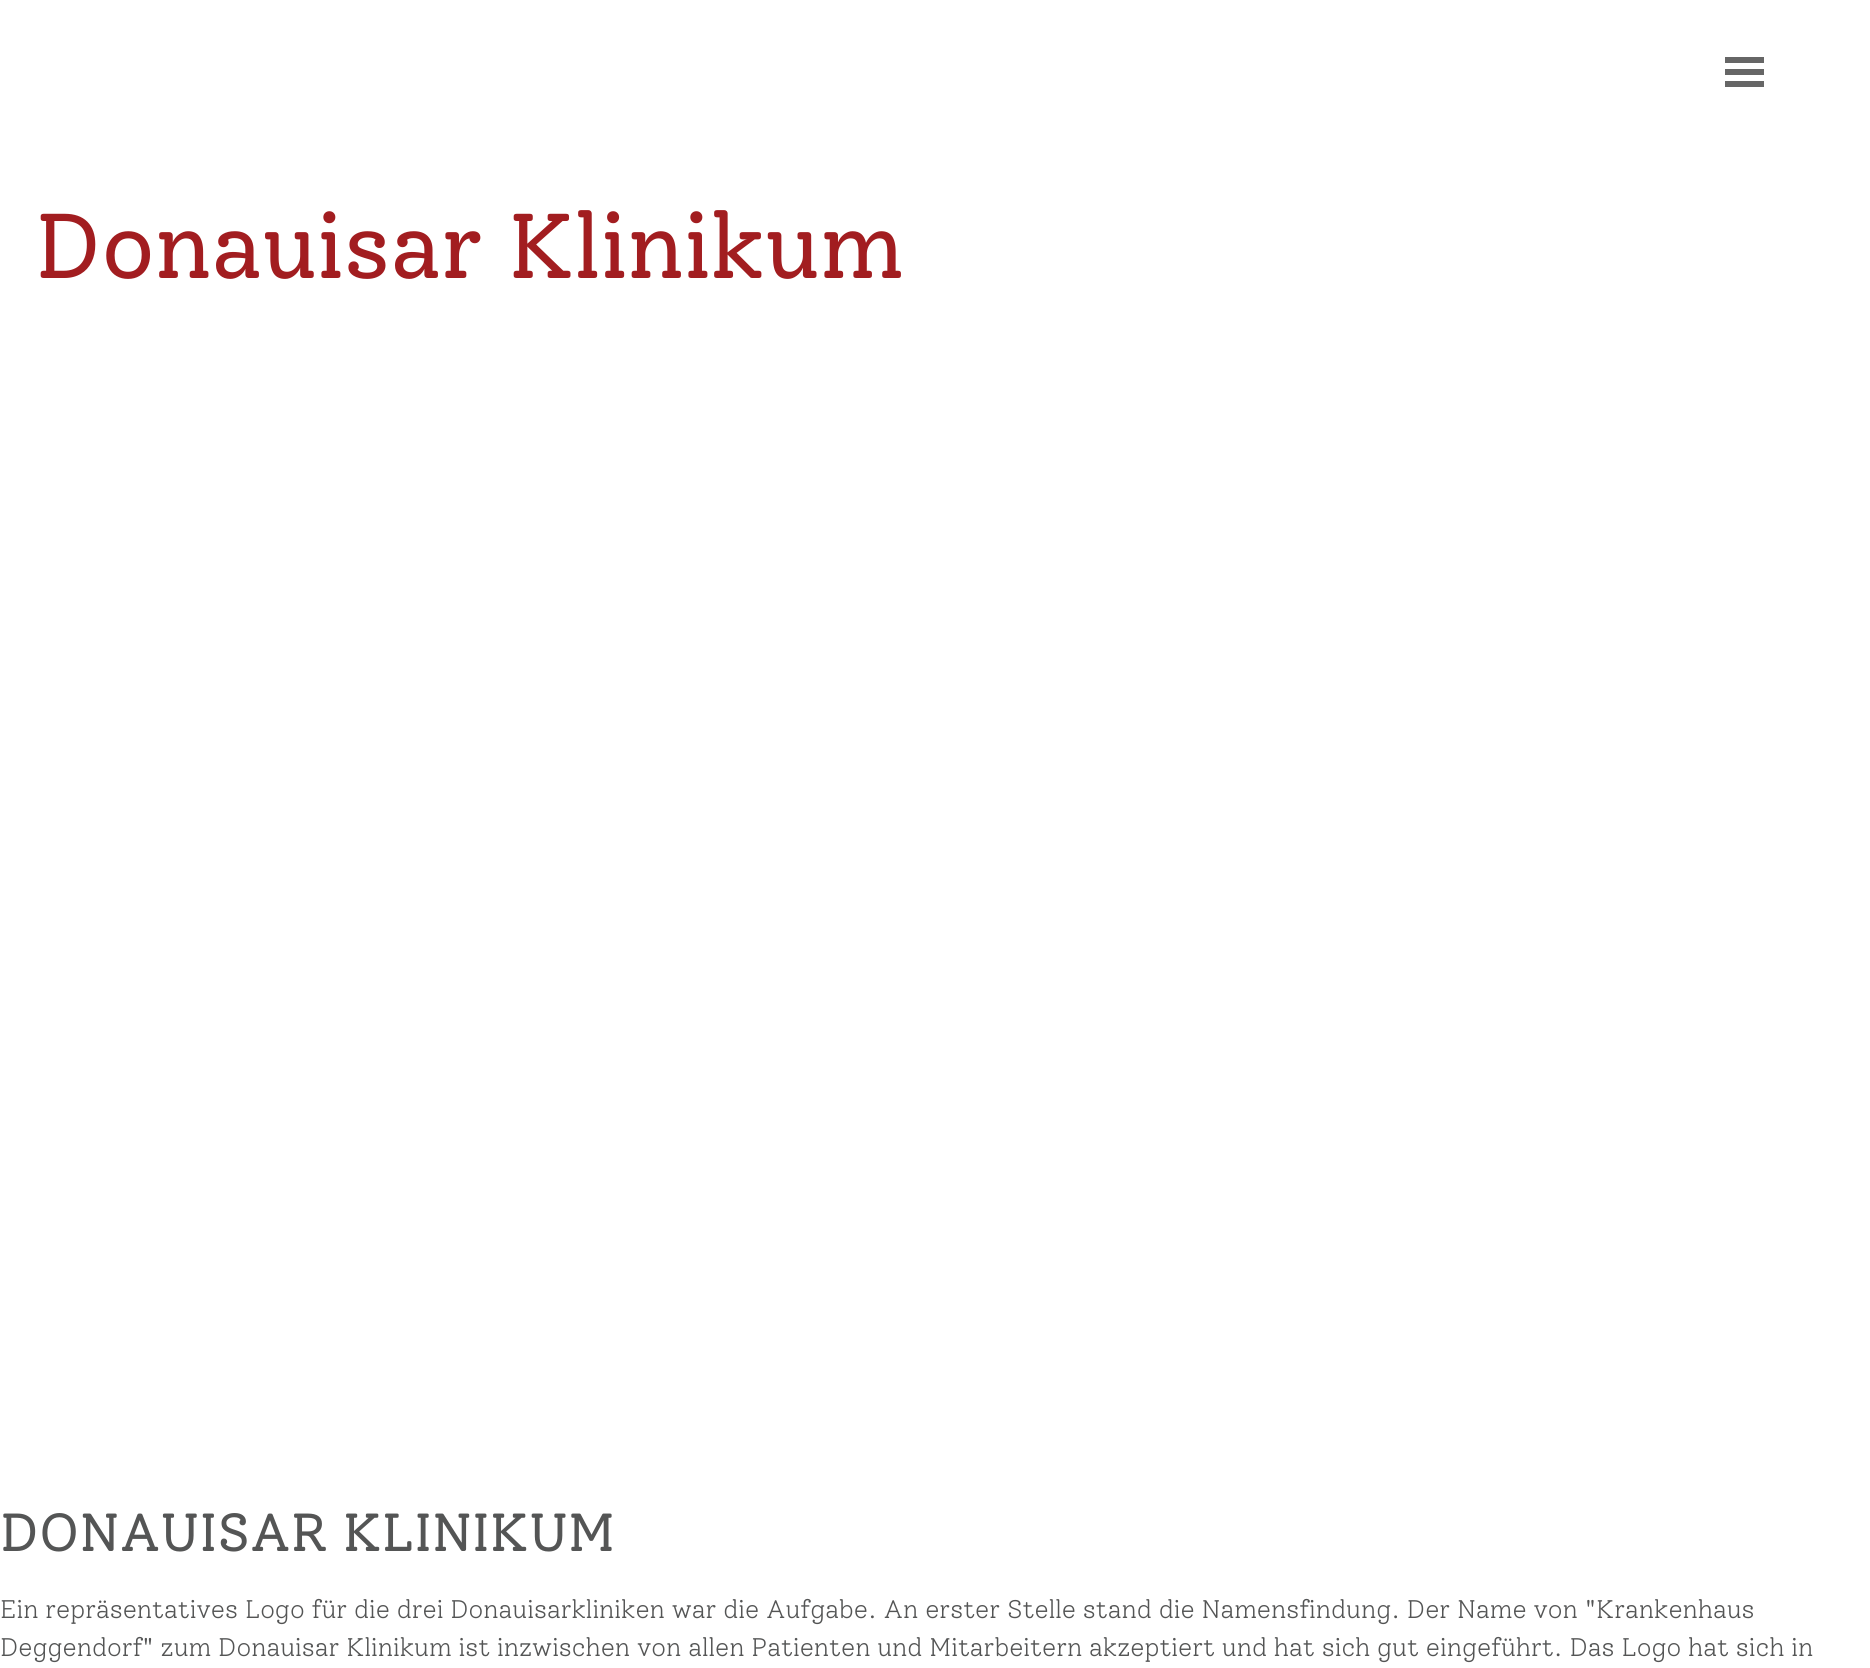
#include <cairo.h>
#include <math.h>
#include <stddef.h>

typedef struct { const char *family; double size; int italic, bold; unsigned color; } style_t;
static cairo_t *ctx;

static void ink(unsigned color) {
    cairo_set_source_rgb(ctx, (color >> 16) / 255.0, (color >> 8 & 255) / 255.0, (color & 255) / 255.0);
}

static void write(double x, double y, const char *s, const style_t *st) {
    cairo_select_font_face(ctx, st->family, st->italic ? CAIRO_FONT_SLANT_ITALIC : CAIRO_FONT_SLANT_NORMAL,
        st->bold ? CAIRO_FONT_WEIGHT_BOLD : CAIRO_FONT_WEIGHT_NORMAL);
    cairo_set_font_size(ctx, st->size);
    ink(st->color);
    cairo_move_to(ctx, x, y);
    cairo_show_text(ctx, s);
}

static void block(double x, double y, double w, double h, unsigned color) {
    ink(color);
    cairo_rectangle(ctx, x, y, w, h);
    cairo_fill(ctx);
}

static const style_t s1 = {"Solway", 91.75, 0, 0, 0xa21d20};
static const style_t s2 = {"Solway", 53.5, 0, 0, 0x545555};
static const style_t s3 = {"Solway Light", 25.5, 0, 0, 0x545555};

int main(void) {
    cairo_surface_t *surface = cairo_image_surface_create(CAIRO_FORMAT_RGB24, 1870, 1668);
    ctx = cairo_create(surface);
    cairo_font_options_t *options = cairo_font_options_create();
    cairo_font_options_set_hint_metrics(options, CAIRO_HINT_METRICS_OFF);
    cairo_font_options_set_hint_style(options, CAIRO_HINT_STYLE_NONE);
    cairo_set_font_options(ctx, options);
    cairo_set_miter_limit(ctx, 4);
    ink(0xffffff);
    cairo_paint(ctx);
    block(1725, 57, 39, 6, 0x666666);
    block(1725, 69, 39, 6, 0x666666);
    block(1725, 81, 39, 6, 0x666666);
    write(35, 278, "Donauisar Klinikum", &s1);
    write(0, 1551, "DONAUISAR KLINIKUM", &s2);
    write(0, 1618, "Ein repräsentatives Logo für die drei Donauisarkliniken war die Aufgabe. An erster Stelle stand die Namensfindung. Der Name von \"Krankenhaus", &s3);
    write(0, 1656, "Deggendorf\" zum Donauisar Klinikum ist inzwischen von allen Patienten und Mitarbeitern akzeptiert und hat sich gut eingeführt. Das Logo hat sich in", &s3);
    cairo_surface_write_to_png(surface, "screenshot.png");
    cairo_font_options_destroy(options);
    cairo_destroy(ctx);
    cairo_surface_destroy(surface);
    return 0;
}
